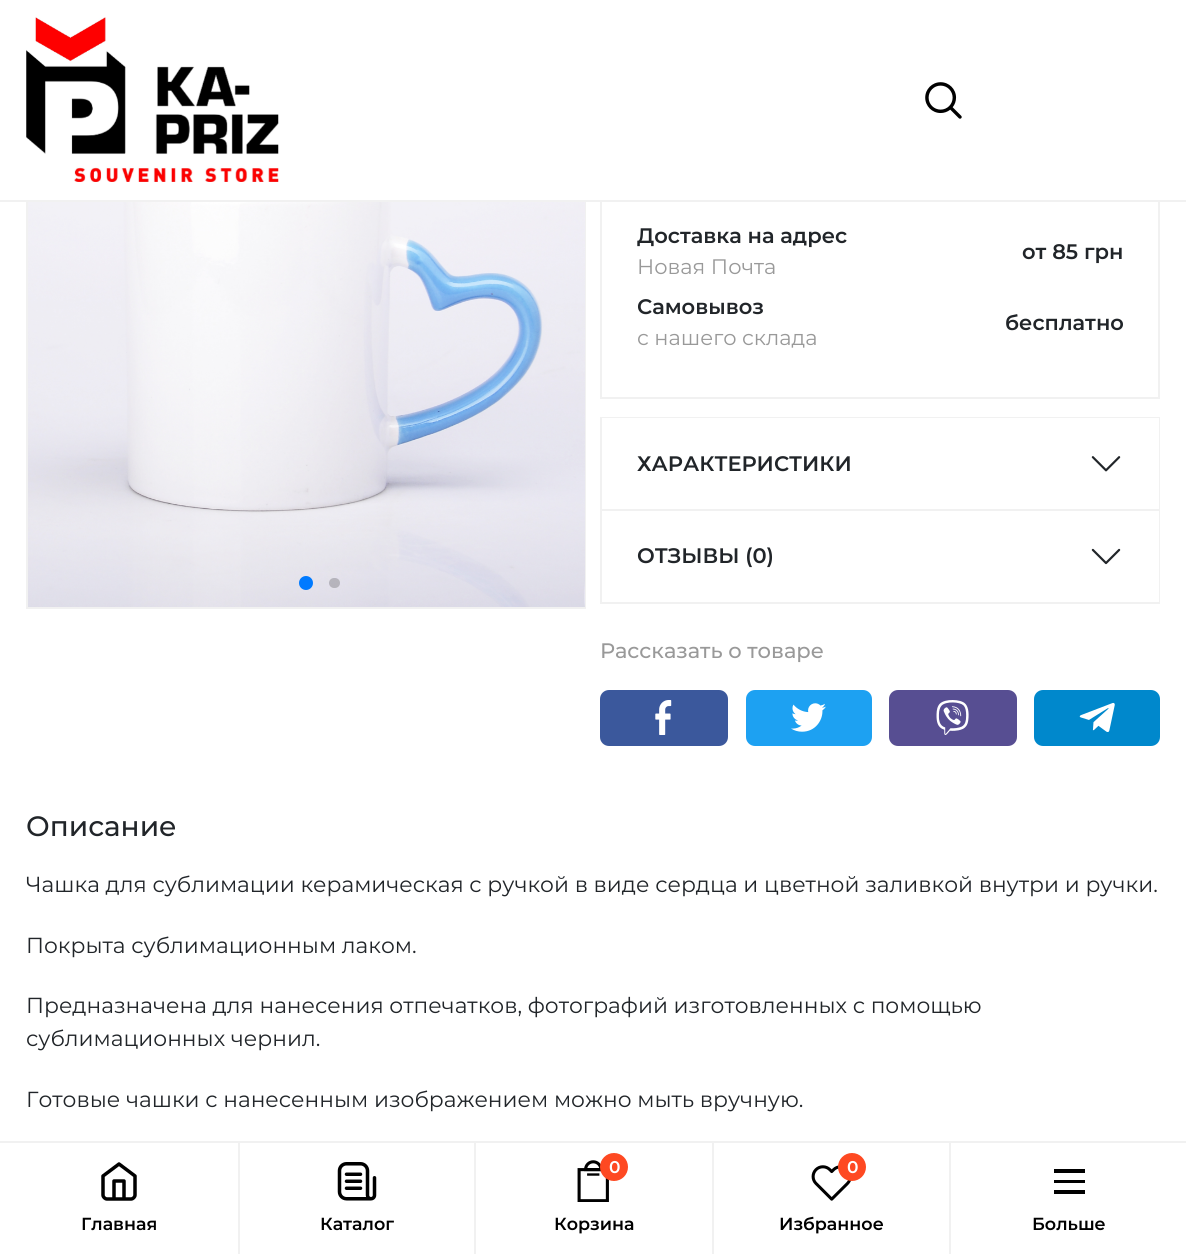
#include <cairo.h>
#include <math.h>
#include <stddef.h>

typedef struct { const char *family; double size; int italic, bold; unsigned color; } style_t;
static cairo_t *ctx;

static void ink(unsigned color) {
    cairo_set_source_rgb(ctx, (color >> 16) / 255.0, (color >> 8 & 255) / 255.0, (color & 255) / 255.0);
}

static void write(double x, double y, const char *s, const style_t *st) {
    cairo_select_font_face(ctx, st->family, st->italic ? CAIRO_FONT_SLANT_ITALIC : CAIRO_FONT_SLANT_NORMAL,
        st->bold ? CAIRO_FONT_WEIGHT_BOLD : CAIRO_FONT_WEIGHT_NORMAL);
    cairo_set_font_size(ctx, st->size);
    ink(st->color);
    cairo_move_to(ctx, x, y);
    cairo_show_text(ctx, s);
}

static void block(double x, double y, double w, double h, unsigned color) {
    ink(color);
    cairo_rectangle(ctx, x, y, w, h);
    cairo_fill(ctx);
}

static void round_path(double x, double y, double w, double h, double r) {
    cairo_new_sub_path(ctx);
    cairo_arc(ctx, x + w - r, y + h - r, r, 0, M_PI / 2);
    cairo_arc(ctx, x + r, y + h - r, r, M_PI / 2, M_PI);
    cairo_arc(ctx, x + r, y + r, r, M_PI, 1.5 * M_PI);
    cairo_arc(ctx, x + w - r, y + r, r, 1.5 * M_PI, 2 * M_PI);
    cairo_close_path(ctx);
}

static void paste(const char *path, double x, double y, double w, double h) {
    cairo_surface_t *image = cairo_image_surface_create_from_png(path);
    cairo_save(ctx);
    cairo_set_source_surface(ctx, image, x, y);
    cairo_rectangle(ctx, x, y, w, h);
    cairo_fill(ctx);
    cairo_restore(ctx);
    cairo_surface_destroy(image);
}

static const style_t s1 = {"Montserrat SemiBold", 21, 0, 0, 0x212529};
static const style_t s2 = {"Montserrat", 21, 0, 0, 0x999999};
static const style_t s3 = {"Montserrat Medium", 21, 0, 0, 0x999999};
static const style_t s4 = {"Montserrat Medium", 28, 0, 0, 0x212529};
static const style_t s5 = {"Montserrat", 21.78, 0, 0, 0x212529};
static const style_t s6 = {"Montserrat SemiBold", 17.5, 0, 0, 0x000000};
static const style_t s7 = {"Montserrat SemiBold", 17, 0, 0, 0xffffff};

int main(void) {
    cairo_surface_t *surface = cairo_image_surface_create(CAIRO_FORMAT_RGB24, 1186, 1254);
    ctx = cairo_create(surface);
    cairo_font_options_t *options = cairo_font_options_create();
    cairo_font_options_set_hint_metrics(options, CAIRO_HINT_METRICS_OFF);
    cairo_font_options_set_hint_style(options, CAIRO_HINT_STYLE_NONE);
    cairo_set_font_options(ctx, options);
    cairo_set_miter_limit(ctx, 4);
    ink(0xffffff);
    cairo_paint(ctx);
    cairo_rectangle(ctx, 27, 50, 558, 558);
    ink(0xf1f1f1);
    cairo_stroke(ctx);
    cairo_rectangle(ctx, 601, -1, 558, 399);
    cairo_stroke(ctx);
    block(26, 0, 1134, 200, 0xffffff);
    block(0, 200, 1186, 2, 0xf1f1f1);
    paste("pic1.png", 26, 17, 253, 165);
    paste("pic2.png", 925, 82, 37, 37);
    paste("pic3.png", 28, 202, 557, 405);
    ink(0x007aff);
    cairo_arc(ctx, 306, 583, 7, 0, 2 * M_PI);
    cairo_fill(ctx);
    cairo_set_source_rgba(ctx, 0, 0, 0, 0.2);
    round_path(329, 578, 11, 10, 5);
    cairo_fill(ctx);
    write(637, 243, "Доставка на адрес", &s1);
    write(637, 274, "Новая Почта", &s2);
    write(1022, 259, "от 85 грн", &s1);
    write(637, 314, "Самовывоз", &s1);
    write(637, 345, "с нашего склада", &s2);
    write(1005, 330, "бесплатно", &s1);
    cairo_rectangle(ctx, 601, 418, 558, 185);
    ink(0xf1f1f1);
    cairo_stroke(ctx);
    block(602, 418, 557, 91, 0xffffff);
    block(602, 509, 557, 2, 0xf1f1f1);
    write(637, 471, "ХАРАКТЕРИСТИКИ", &s1);
    paste("pic4.png", 1091, 456, 30, 16);
    block(1158, 511, 1, 91, 0xffffff);
    write(637, 563, "ОТЗЫВЫ (0)", &s1);
    paste("pic5.png", 1091, 548, 30, 17);
    write(600, 658, "Рассказать о товаре", &s3);
    ink(0x3b589c);
    round_path(600, 690, 128, 56, 9);
    cairo_fill(ctx);
    paste("pic6.png", 655, 700, 17, 35);
    ink(0x1da1f2);
    round_path(746, 690, 126, 56, 9);
    cairo_fill(ctx);
    paste("pic7.png", 791, 703, 35, 29);
    ink(0x574e92);
    round_path(889, 690, 128, 56, 9);
    cairo_fill(ctx);
    paste("pic8.png", 936, 700, 33, 35);
    ink(0x0088cc);
    round_path(1034, 690, 126, 56, 9);
    cairo_fill(ctx);
    paste("pic9.png", 1079, 702, 36, 30);
    write(26, 836, "Описание", &s4);
    write(26, 892, "Чашка для сублимации керамическая с ручкой в виде сердца и цветной заливкой внутри и ручки.", &s5);
    write(26, 953, "Покрыта сублимационным лаком.", &s5);
    write(26, 1013, "Предназначена для нанесения отпечатков, фотографий изготовленных с помощью", &s5);
    write(26, 1046, "сублимационных чернил.", &s5);
    write(26, 1107, "Готовые чашки с нанесенным изображением можно мыть вручную.", &s5);
    block(0, 1141, 1186, 2, 0xf1f1f1);
    cairo_new_path(ctx);
    cairo_move_to(ctx, 103, 1176);
    cairo_line_to(ctx, 119, 1164);
    cairo_line_to(ctx, 135, 1176);
    cairo_line_to(ctx, 135, 1195);
    cairo_curve_to(ctx, 135, 1197, 133, 1199, 131, 1199);
    cairo_line_to(ctx, 107, 1199);
    cairo_curve_to(ctx, 105, 1199, 103, 1197, 103, 1195);
    cairo_close_path(ctx);
    cairo_move_to(ctx, 114, 1199);
    cairo_line_to(ctx, 114, 1181);
    cairo_line_to(ctx, 124, 1181);
    cairo_line_to(ctx, 124, 1199);
    ink(0x000000);
    cairo_set_line_width(ctx, 3.5);
    cairo_set_line_cap(ctx, CAIRO_LINE_CAP_ROUND);
    cairo_set_line_join(ctx, CAIRO_LINE_JOIN_ROUND);
    cairo_stroke(ctx);
    write(81, 1230, "Главная", &s6);
    block(238, 1143, 2, 111, 0xf1f1f1);
    paste("pic10.png", 337, 1162, 40, 39);
    write(320, 1230, "Каталог", &s6);
    block(474, 1143, 2, 111, 0xf1f1f1);
    paste("pic11.png", 577, 1160, 32, 42);
    ink(0xfe4922);
    cairo_arc(ctx, 614, 1167, 14, 0, 2 * M_PI);
    cairo_fill(ctx);
    write(609, 1173, "0", &s7);
    write(554, 1230, "Корзина", &s6);
    block(712, 1143, 2, 111, 0xf1f1f1);
    paste("pic12.png", 811, 1165, 41, 36);
    ink(0xfe4922);
    cairo_arc(ctx, 852, 1167, 14, 0, 2 * M_PI);
    cairo_fill(ctx);
    write(847, 1173, "0", &s7);
    write(779, 1230, "Избранное", &s6);
    block(949, 1143, 2, 111, 0xf1f1f1);
    block(1054, 1169, 31, 4, 0x000000);
    block(1054, 1180, 31, 3, 0x000000);
    block(1054, 1190, 31, 4, 0x000000);
    write(1032, 1230, "Больше", &s6);
    cairo_surface_write_to_png(surface, "screenshot.png");
    cairo_font_options_destroy(options);
    cairo_destroy(ctx);
    cairo_surface_destroy(surface);
    return 0;
}
